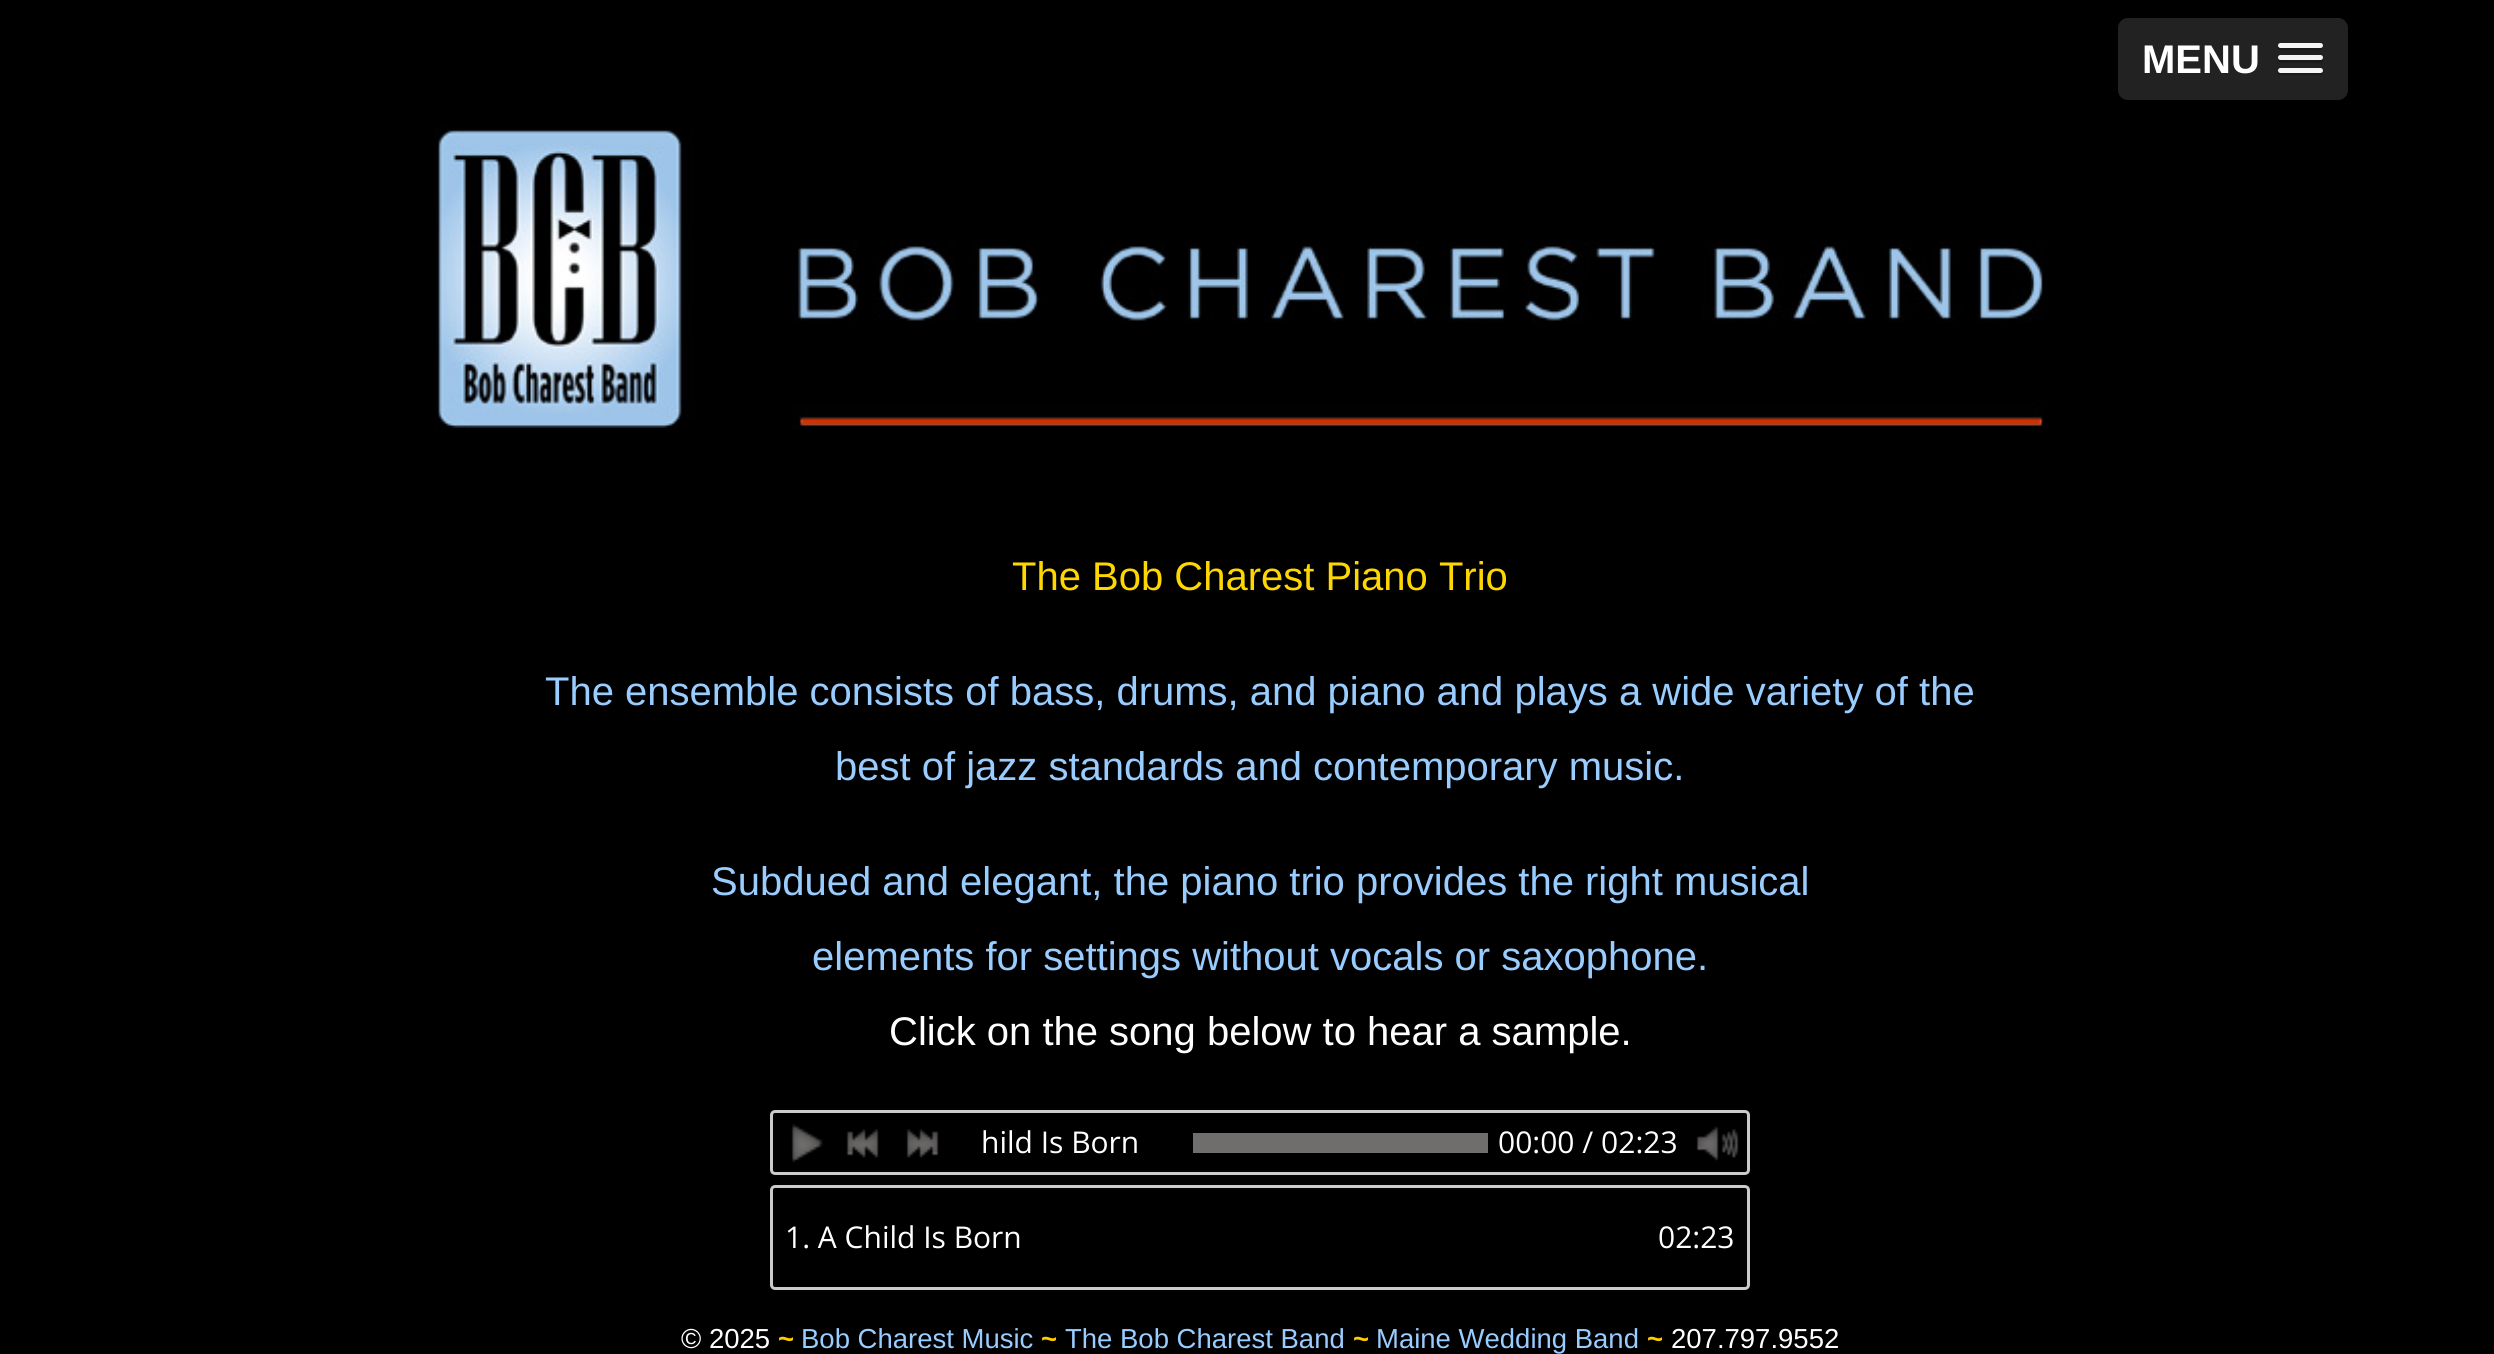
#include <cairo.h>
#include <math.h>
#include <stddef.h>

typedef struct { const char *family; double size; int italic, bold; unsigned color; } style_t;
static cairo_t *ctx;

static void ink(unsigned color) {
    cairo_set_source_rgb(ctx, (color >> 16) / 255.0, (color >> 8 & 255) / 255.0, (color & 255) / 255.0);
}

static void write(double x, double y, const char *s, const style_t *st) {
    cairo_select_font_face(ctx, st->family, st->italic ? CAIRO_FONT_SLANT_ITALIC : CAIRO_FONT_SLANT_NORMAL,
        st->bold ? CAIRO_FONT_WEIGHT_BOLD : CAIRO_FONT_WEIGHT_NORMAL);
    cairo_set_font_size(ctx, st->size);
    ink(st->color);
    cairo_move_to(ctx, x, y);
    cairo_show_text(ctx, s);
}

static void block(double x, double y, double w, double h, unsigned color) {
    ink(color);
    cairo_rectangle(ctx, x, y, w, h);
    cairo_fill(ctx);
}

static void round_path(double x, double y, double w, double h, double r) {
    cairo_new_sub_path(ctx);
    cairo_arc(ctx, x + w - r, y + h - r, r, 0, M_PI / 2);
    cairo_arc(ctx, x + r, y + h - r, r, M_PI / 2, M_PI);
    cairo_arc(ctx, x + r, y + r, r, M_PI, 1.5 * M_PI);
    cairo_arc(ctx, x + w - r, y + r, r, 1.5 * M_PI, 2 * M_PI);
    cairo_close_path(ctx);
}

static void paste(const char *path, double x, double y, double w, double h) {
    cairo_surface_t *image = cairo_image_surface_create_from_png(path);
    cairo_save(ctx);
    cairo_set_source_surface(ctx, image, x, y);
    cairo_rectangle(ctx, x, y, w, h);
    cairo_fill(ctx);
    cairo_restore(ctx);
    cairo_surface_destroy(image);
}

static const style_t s1 = {"Liberation Sans", 40, 0, 1, 0xffffff};
static const style_t s2 = {"Liberation Sans", 40, 0, 0, 0xffd700};
static const style_t s3 = {"Liberation Sans", 40, 0, 0, 0x99ccff};
static const style_t s4 = {"Liberation Sans", 40, 0, 0, 0xffffff};
static const style_t s5 = {"Open Sans", 30, 0, 0, 0xffffff};
static const style_t s6 = {"Liberation Sans", 27.5, 0, 0, 0xffffff};
static const style_t s7 = {"Liberation Sans", 27.5, 0, 1, 0xffcc00};
static const style_t s8 = {"Liberation Sans", 27.5, 0, 0, 0x99ccff};

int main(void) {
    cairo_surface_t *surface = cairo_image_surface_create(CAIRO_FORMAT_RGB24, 2494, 1354);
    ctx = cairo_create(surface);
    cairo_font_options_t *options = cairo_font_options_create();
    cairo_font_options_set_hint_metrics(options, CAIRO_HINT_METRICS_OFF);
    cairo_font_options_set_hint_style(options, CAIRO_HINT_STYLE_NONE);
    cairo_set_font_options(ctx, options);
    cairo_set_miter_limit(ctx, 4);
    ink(0x000000);
    cairo_paint(ctx);
    ink(0x222222);
    round_path(2118, 18, 230, 82, 10);
    cairo_fill(ctx);
    write(2142, 73, "MENU", &s1);
    ink(0x1a1a1a);
    cairo_new_path(ctx);
    cairo_move_to(ctx, 2278, 47);
    cairo_curve_to(ctx, 2276, 52, 2286, 50, 2287, 50);
    cairo_line_to(ctx, 2314, 50);
    cairo_curve_to(ctx, 2315, 50, 2322, 52, 2323, 48);
    cairo_line_to(ctx, 2322, 46);
    cairo_line_to(ctx, 2320, 47);
    cairo_line_to(ctx, 2280, 47);
    cairo_close_path(ctx);
    cairo_fill(ctx);
    ink(0xf5f5f5);
    round_path(2278, 43, 45, 5, 2.5);
    cairo_fill(ctx);
    ink(0x1a1a1a);
    cairo_new_path(ctx);
    cairo_move_to(ctx, 2278, 59);
    cairo_curve_to(ctx, 2276, 64, 2287, 63, 2287, 63);
    cairo_line_to(ctx, 2314, 63);
    cairo_curve_to(ctx, 2315, 63, 2322, 65, 2323, 61);
    cairo_line_to(ctx, 2322, 59);
    cairo_line_to(ctx, 2320, 60);
    cairo_curve_to(ctx, 2317, 60, 2280, 61, 2278, 59);
    cairo_close_path(ctx);
    cairo_fill(ctx);
    ink(0xf5f5f5);
    round_path(2278, 55, 45, 5, 2.5);
    cairo_fill(ctx);
    ink(0x1a1a1a);
    cairo_new_path(ctx);
    cairo_move_to(ctx, 2278, 72);
    cairo_curve_to(ctx, 2276, 77, 2286, 75, 2287, 75);
    cairo_line_to(ctx, 2314, 75);
    cairo_curve_to(ctx, 2315, 75, 2322, 77, 2323, 73);
    cairo_line_to(ctx, 2322, 71);
    cairo_line_to(ctx, 2320, 72);
    cairo_line_to(ctx, 2280, 72);
    cairo_close_path(ctx);
    cairo_fill(ctx);
    ink(0xf5f5f5);
    round_path(2278, 68, 45, 5, 2.5);
    cairo_fill(ctx);
    paste("pic1.png", 435, 127, 1609, 303);
    write(1012, 590, "The Bob Charest Piano Trio", &s2);
    write(545, 705, "The ensemble consists of bass, drums, and piano and plays a wide variety of the", &s3);
    write(835, 780, "best of jazz standards and contemporary music.", &s3);
    write(711, 895, "Subdued and elegant, the piano trio provides the right musical", &s3);
    write(812, 970, "elements for settings without vocals or saxophone.", &s3);
    write(889, 1045, "Click on the song below to hear a sample.", &s4);
    round_path(771.5, 1111.5, 977, 62, 3.5);
    ink(0xcbcbcb);
    cairo_set_line_width(ctx, 3);
    cairo_stroke(ctx);
    paste("pic2.png", 791, 1124, 32, 39);
    paste("pic3.png", 846, 1129, 33, 29);
    paste("pic4.png", 906, 1129, 33, 29);
    write(981, 1153, "hild Is Born", &s5);
    block(1193, 1133, 295, 20, 0x706d6d);
    write(1498, 1153, "00:00 / 02:23", &s5);
    paste("pic5.png", 1696, 1126, 43, 35);
    round_path(771.5, 1186.5, 977, 102, 3.5);
    ink(0xcbcbcb);
    cairo_stroke(ctx);
    write(785, 1248, "1. A Child Is Born", &s5);
    write(1658, 1248, "02:23", &s5);
    write(681, 1348, "© 2025", &s6);
    write(778, 1348, "~", &s7);
    write(801, 1348, "Bob Charest Music", &s8);
    write(1041, 1348, "~", &s7);
    write(1065, 1348, "The Bob Charest Band", &s8);
    write(1353, 1348, "~", &s7);
    write(1376, 1348, "Maine Wedding Band", &s8);
    write(1647, 1348, "~", &s7);
    write(1671, 1348, "207.797.9552", &s6);
    cairo_surface_write_to_png(surface, "screenshot.png");
    cairo_font_options_destroy(options);
    cairo_destroy(ctx);
    cairo_surface_destroy(surface);
    return 0;
}
